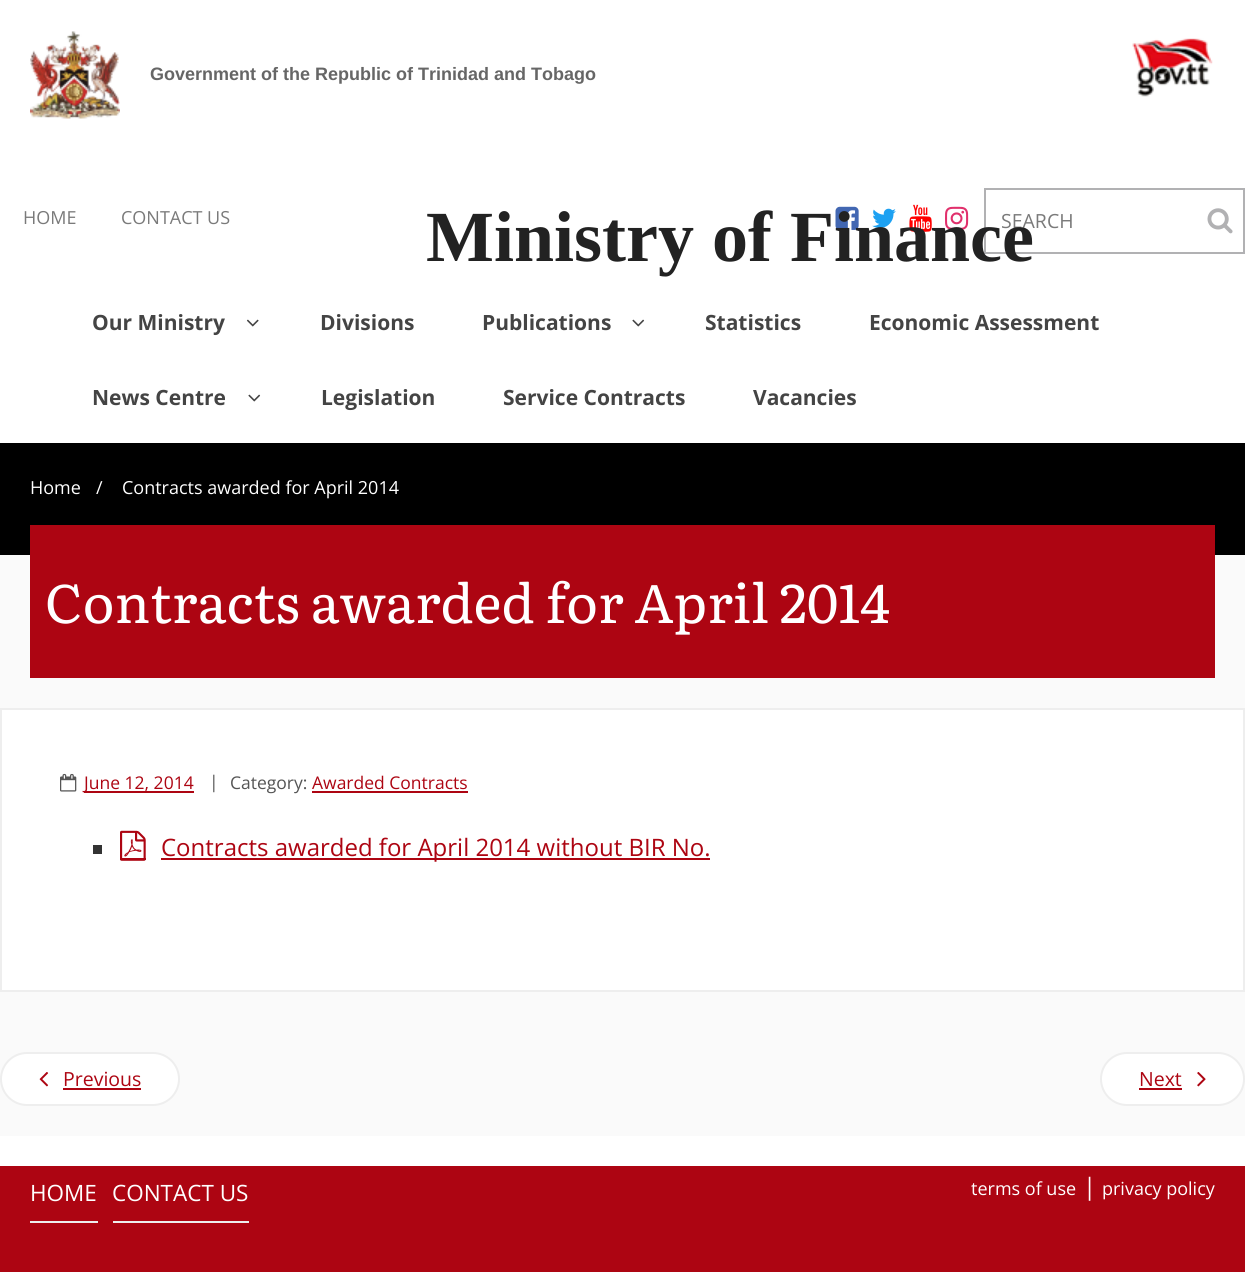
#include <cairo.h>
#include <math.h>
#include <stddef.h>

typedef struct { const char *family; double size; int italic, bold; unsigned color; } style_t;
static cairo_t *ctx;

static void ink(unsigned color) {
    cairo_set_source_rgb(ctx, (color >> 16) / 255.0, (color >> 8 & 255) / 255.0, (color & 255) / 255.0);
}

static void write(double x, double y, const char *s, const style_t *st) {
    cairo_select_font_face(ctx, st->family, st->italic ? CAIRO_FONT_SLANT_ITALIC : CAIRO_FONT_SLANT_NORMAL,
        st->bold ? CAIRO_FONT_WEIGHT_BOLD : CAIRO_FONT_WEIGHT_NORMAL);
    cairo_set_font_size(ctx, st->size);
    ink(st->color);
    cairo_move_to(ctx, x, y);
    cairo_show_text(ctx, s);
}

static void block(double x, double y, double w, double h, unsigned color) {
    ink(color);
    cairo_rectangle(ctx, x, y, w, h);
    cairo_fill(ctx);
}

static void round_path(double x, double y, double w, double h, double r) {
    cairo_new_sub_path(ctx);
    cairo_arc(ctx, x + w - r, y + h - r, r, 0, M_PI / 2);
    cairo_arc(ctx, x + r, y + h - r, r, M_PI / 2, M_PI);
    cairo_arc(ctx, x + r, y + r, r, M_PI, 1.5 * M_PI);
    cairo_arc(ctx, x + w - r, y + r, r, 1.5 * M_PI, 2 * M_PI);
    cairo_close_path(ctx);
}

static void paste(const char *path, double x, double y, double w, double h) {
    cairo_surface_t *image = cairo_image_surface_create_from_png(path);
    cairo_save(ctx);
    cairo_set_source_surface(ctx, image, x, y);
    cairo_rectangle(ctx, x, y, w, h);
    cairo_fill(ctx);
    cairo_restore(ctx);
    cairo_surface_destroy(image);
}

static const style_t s1 = {"Liberation Sans", 18, 0, 1, 0x666666};
static const style_t s2 = {"Open Sans", 18, 0, 0, 0x7a7a7a};
static const style_t s3 = {"Open Sans", 19.5, 0, 0, 0x7a7a7a};
static const style_t s4 = {"Liberation Serif", 72, 0, 1, 0x222222};
static const style_t s5 = {"Open Sans", 21, 0, 1, 0x444444};
static const style_t s6 = {"Open Sans", 18, 0, 0, 0xffffff};
static const style_t s7 = {"Literata", 54, 0, 0, 0xffffff};
static const style_t s8 = {"Open Sans", 17.5, 0, 0, 0xad0512};
static const style_t s9 = {"Open Sans", 17.5, 0, 0, 0x555555};
static const style_t s10 = {"Open Sans", 24, 0, 0, 0xad0512};
static const style_t s11 = {"Open Sans", 19.5, 0, 0, 0xad0512};
static const style_t s12 = {"Open Sans", 22.5, 0, 0, 0xffffff};
static const style_t s13 = {"Open Sans", 24, 0, 0, 0xffffff};

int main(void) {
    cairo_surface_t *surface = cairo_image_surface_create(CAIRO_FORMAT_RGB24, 1245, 1272);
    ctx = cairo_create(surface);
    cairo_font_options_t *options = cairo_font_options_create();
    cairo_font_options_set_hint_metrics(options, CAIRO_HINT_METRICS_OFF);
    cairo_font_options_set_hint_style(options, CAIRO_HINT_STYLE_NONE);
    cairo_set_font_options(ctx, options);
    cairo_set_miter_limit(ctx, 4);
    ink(0xfafafa);
    cairo_paint(ctx);
    block(0, 0, 1245, 443, 0xffffff);
    paste("pic1.png", 30, 31, 90, 88);
    write(150, 80, "Government of the Republic of Trinidad and Tobago", &s1);
    paste("pic2.png", 1132, 38, 81, 59);
    write(23, 224, "HOME", &s2);
    write(121, 224, "CONTACT US", &s2);
    paste("pic3.png", 835, 206, 24, 24);
    paste("pic4.png", 872, 208, 24, 20);
    paste("pic5.png", 909, 204, 23, 28);
    paste("pic6.png", 945, 206, 24, 24);
    cairo_rectangle(ctx, 985, 189, 259, 64);
    ink(0xb1b1b3);
    cairo_stroke(ctx);
    write(1001, 228, "SEARCH", &s3);
    paste("pic7.png", 1207, 208, 26, 26);
    write(426, 261, "Ministry of Finance", &s4);
    write(92, 330, "Our Ministry", &s5);
    paste("pic8.png", 246, 319, 13, 8);
    write(320, 330, "Divisions", &s5);
    write(482, 330, "Publications", &s5);
    paste("pic9.png", 632, 319, 13, 8);
    write(705, 330, "Statistics", &s5);
    write(869, 330, "Economic Assessment", &s5);
    write(92, 405, "News Centre", &s5);
    paste("pic9.png", 248, 394, 13, 8);
    write(321, 405, "Legislation", &s5);
    write(503, 405, "Service Contracts", &s5);
    write(753, 405, "Vacancies", &s5);
    block(0, 443, 1245, 112, 0x000000);
    write(30, 494, "Home", &s6);
    write(96, 494, "/", &s6);
    write(122, 494, "Contracts awarded for April 2014", &s6);
    block(30, 525, 1185, 153, 0xad0512);
    write(45, 623, "Contracts awarded for April 2014", &s7);
    cairo_rectangle(ctx, 1, 709, 1243, 282);
    cairo_fill_preserve(ctx);
    ink(0xeeeeee);
    cairo_stroke(ctx);
    paste("pic10.png", 60, 773, 17, 19);
    block(84, 791, 110, 2, 0xad0512);
    write(84, 789, "June 12, 2014", &s8);
    write(209, 788, "|", &s9);
    write(230, 789, "Category:", &s9);
    write(312, 789, "Awarded Contracts", &s8);
    block(312, 791, 156, 2, 0xad0512);
    block(93, 845, 9, 9, 0x333333);
    block(120, 858, 26, 2, 0xad0512);
    paste("pic11.png", 120, 830, 26, 31);
    block(161, 858, 549, 2, 0xad0512);
    write(161, 856, "Contracts awarded for April 2014 without BIR No.", &s10);
    ink(0xffffff);
    round_path(1, 1053, 178, 52, 26);
    cairo_fill_preserve(ctx);
    ink(0xeeeeee);
    cairo_stroke(ctx);
    paste("pic12.png", 39, 1072, 10, 15);
    write(63, 1086, "Previous", &s11);
    block(63, 1088, 78, 2, 0xad0512);
    ink(0xffffff);
    round_path(1101, 1053, 143, 52, 26);
    cairo_fill_preserve(ctx);
    ink(0xeeeeee);
    cairo_stroke(ctx);
    write(1139, 1086, "Next", &s11);
    block(1139, 1088, 43, 2, 0xad0512);
    paste("pic13.png", 1197, 1072, 9, 15);
    block(0, 1136, 1245, 30, 0xffffff);
    block(0, 1166, 1245, 106, 0xad0512);
    block(30, 1221, 68, 2, 0xeeeeee);
    write(30, 1201, "HOME", &s12);
    block(113, 1221, 136, 2, 0xeeeeee);
    write(112, 1201, "CONTACT US", &s12);
    write(971, 1195, "terms of use", &s6);
    write(1083, 1195, "|", &s13);
    write(1102, 1195, "privacy policy", &s6);
    cairo_surface_write_to_png(surface, "screenshot.png");
    cairo_font_options_destroy(options);
    cairo_destroy(ctx);
    cairo_surface_destroy(surface);
    return 0;
}
